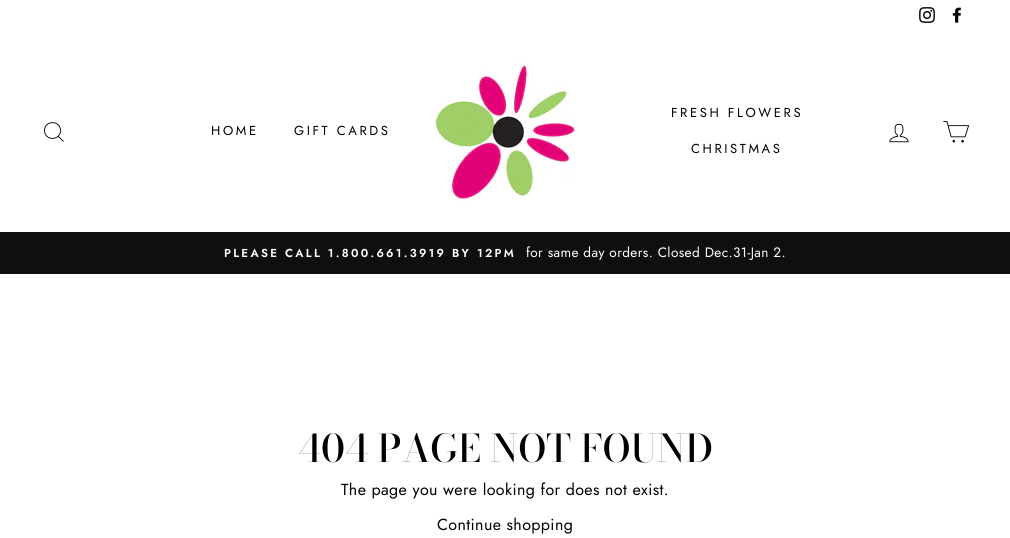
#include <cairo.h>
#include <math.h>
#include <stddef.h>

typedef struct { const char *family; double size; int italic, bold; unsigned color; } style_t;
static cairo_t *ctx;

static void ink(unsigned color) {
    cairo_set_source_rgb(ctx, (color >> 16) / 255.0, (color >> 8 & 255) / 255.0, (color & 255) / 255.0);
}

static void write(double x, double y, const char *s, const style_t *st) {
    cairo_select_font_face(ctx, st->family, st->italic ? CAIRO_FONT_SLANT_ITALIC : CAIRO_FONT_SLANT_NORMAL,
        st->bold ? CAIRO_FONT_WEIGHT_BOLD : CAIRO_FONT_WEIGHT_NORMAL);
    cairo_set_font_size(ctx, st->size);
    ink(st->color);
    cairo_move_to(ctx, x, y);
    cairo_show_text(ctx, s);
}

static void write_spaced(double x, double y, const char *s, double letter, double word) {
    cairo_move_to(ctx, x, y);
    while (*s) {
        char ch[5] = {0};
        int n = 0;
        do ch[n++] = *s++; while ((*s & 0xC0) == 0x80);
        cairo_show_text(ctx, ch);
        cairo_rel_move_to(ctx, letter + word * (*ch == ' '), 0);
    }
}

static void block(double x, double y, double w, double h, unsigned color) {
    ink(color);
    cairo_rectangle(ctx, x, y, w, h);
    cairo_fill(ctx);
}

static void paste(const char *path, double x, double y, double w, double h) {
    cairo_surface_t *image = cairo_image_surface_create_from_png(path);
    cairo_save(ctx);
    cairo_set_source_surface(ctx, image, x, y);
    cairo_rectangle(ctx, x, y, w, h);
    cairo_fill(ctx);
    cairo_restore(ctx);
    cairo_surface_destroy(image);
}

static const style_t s1 = {"Bodoni Moda Medium", 38, 0, 0, 0x000000};

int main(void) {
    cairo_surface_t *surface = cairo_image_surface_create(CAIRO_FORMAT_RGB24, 1010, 538);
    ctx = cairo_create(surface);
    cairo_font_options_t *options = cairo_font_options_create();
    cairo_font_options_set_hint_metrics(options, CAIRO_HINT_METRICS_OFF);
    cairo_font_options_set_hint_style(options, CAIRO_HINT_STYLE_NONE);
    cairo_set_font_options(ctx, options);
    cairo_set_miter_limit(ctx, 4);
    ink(0xffffff);
    cairo_paint(ctx);
    paste("pic1.png", 919, 7, 16, 16);
    paste("pic2.png", 952, 7, 9, 16);
    cairo_new_path(ctx);
    cairo_move_to(ctx, 60.5, 130.5);
    cairo_curve_to(ctx, 60.5, 141, 44.5, 141, 44.5, 130.5);
    cairo_curve_to(ctx, 44.5, 120, 60.5, 120, 60.5, 130.5);
    cairo_close_path(ctx);
    cairo_move_to(ctx, 63.5, 141.5);
    cairo_line_to(ctx, 58.5, 136.5);
    ink(0x000000);
    cairo_set_line_width(ctx, 0.9);
    cairo_stroke(ctx);
    cairo_select_font_face(ctx, "Jost", CAIRO_FONT_SLANT_NORMAL, CAIRO_FONT_WEIGHT_NORMAL);
    cairo_set_font_size(ctx, 13);
    write_spaced(211, 135, "HOME", 2.6, 0);
    write_spaced(294, 135, "GIFT CARDS", 2.6, 0);
    paste("pic3.png", 435, 62, 140, 139);
    write_spaced(671, 117, "FRESH FLOWERS", 2.6, 0);
    write_spaced(691, 153, "CHRISTMAS", 2.6, 0);
    paste("pic4.png", 889, 123, 20, 20);
    paste("pic5.png", 943, 121, 27, 22);
    block(0, 232, 1010, 42, 0x0f0f0f);
    cairo_select_font_face(ctx, "Jost SemiBold", CAIRO_FONT_SLANT_NORMAL, CAIRO_FONT_WEIGHT_NORMAL);
    cairo_set_font_size(ctx, 11.55);
    ink(0xffffff);
    write_spaced(224, 257, "PLEASE CALL 1.800.661.3919 BY 12PM", 2.3, 0);
    cairo_select_font_face(ctx, "Jost", CAIRO_FONT_SLANT_NORMAL, CAIRO_FONT_WEIGHT_NORMAL);
    cairo_set_font_size(ctx, 13.6);
    write_spaced(526, 257, "for same day orders. Closed Dec.31-Jan 2.", 0.4, 0);
    write(298, 462, "404 PAGE NOT FOUND", &s1);
    cairo_select_font_face(ctx, "Jost", CAIRO_FONT_SLANT_NORMAL, CAIRO_FONT_WEIGHT_NORMAL);
    cairo_set_font_size(ctx, 16);
    write_spaced(341, 495, "The page you were looking for does not exist.", 0.4, 0);
    write_spaced(437, 530, "Continue shopping", 0.4, 0);
    cairo_surface_write_to_png(surface, "screenshot.png");
    cairo_font_options_destroy(options);
    cairo_destroy(ctx);
    cairo_surface_destroy(surface);
    return 0;
}
